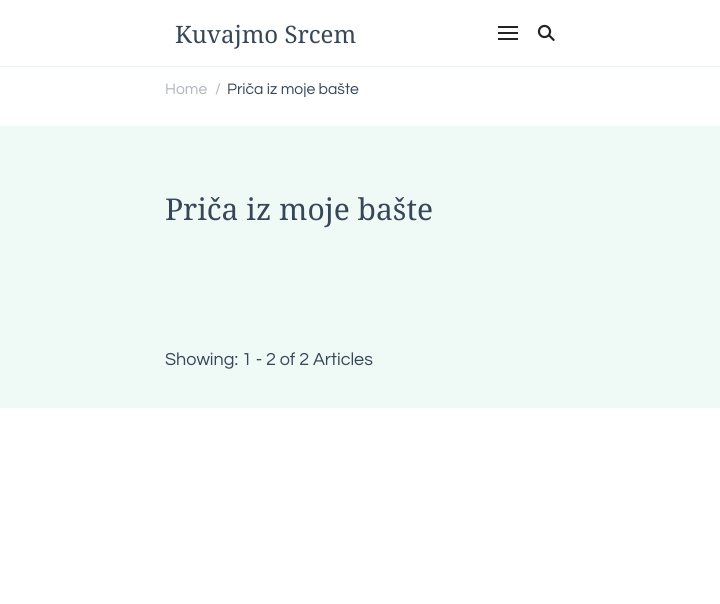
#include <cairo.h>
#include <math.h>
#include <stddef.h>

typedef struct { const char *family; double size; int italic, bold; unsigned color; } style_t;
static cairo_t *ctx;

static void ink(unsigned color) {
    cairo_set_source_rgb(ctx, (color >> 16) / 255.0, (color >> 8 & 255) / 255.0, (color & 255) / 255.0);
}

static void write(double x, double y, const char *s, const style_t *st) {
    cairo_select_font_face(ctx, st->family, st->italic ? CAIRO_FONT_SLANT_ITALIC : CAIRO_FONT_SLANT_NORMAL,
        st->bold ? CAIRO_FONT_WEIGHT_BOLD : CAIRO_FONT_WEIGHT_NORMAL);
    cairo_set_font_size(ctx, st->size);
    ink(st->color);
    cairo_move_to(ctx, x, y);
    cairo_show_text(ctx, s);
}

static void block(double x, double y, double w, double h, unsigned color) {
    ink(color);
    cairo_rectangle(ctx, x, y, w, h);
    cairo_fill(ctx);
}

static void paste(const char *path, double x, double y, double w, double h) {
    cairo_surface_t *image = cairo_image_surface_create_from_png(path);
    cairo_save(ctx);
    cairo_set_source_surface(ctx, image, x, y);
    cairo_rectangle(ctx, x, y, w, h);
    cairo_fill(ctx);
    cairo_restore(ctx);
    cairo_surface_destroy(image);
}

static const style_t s1 = {"Noto Serif", 24, 0, 0, 0x374757};
static const style_t s2 = {"Questrial", 15.75, 0, 0, 0xafb5bc};
static const style_t s3 = {"Questrial", 15.75, 0, 0, 0x374757};
static const style_t s4 = {"Noto Serif", 30, 0, 0, 0x374757};
static const style_t s5 = {"Questrial", 18, 0, 0, 0x374757};

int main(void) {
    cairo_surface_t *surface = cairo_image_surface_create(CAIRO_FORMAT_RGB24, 720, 604);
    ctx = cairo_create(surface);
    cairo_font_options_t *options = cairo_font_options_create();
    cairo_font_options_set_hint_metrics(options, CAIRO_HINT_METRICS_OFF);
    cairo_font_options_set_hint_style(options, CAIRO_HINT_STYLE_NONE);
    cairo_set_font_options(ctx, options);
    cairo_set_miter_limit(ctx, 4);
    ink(0xffffff);
    cairo_paint(ctx);
    block(0, 66, 720, 1, 0xeaf8f4);
    write(175, 43, "Kuvajmo Srcem", &s1);
    block(498, 26, 20, 2, 0x232323);
    block(498, 32, 20, 2, 0x232323);
    block(498, 38, 20, 2, 0x232323);
    paste("pic1.png", 537, 24, 18, 17);
    write(165, 94, "Home", &s2);
    write(215, 94, "/", &s2);
    write(227, 94, "Priča iz moje bašte", &s3);
    block(0, 126, 720, 282, 0xeffaf7);
    write(165, 220, "Priča iz moje bašte", &s4);
    write(165, 365, "Showing: 1 - 2 of 2 Articles", &s5);
    cairo_surface_write_to_png(surface, "screenshot.png");
    cairo_font_options_destroy(options);
    cairo_destroy(ctx);
    cairo_surface_destroy(surface);
    return 0;
}
